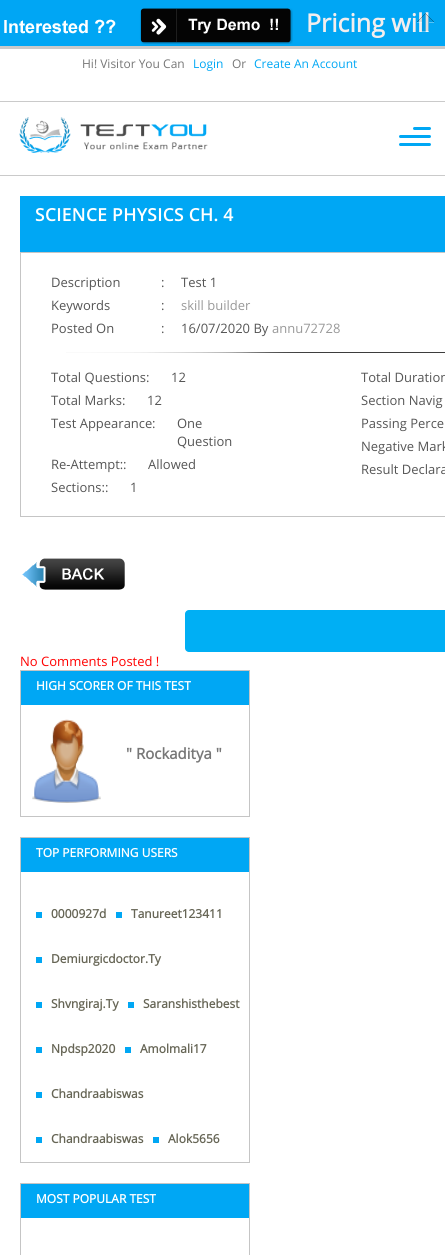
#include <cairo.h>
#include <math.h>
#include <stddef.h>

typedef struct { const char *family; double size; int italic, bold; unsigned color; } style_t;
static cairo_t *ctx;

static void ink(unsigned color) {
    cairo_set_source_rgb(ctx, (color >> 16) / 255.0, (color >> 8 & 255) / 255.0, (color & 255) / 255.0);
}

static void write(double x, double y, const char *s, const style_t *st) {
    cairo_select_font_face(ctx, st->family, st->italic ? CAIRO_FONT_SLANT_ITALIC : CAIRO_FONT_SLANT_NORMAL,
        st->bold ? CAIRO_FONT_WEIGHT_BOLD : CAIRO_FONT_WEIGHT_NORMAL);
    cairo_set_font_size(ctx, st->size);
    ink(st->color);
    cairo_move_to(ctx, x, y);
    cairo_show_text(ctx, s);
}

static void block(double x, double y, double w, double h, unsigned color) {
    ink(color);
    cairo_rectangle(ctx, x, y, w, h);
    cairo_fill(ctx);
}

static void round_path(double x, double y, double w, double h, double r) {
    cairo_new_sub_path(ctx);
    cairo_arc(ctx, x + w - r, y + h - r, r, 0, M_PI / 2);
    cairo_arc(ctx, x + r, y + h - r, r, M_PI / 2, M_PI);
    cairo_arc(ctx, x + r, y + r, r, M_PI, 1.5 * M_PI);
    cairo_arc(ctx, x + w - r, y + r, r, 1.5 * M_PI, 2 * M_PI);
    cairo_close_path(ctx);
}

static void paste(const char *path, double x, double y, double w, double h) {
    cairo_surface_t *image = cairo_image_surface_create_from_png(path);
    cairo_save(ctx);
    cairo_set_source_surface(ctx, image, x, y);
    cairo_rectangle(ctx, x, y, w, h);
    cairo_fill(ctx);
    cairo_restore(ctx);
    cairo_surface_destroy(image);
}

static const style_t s1 = {"Open Sans", 25, 0, 1, 0xf3eeee};
static const style_t s2 = {"Open Sans", 12, 0, 0, 0x777777};
static const style_t s3 = {"Open Sans", 12, 0, 0, 0x00a7f4};
static const style_t s4 = {"Open Sans SemiBold", 18, 0, 0, 0xffffff};
static const style_t s5 = {"Open Sans", 13, 0, 0, 0x555555};
static const style_t s6 = {"Open Sans", 13, 0, 0, 0x999999};
static const style_t s7 = {"Open Sans", 13, 0, 0, 0xff0000};
static const style_t s8 = {"Open Sans", 12, 0, 1, 0xffffff};
static const style_t s9 = {"Open Sans", 15, 0, 1, 0x777777};
static const style_t s10 = {"Open Sans", 12, 0, 1, 0x666555};

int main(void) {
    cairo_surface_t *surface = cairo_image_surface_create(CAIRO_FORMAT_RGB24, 445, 1255);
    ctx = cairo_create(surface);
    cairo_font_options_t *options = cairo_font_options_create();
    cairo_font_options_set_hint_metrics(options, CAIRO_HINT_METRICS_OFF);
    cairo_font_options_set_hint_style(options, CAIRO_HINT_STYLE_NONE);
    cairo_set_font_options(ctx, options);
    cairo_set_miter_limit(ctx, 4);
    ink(0xffffff);
    cairo_paint(ctx);
    block(0, 0, 445, 46, 0x00a6f4);
    block(0, 46, 445, 3, 0xcacaca);
    paste("pic1.png", 4, 8, 289, 36);
    write(306, 32, "Pricing will", &s1);
    paste("pic2.png", 417, 13, 17, 19);
    block(0, 101, 445, 1, 0xcacaca);
    write(82, 68, "Hi! Visitor You Can", &s2);
    write(193, 68, "Login", &s3);
    write(232, 68, "Or", &s2);
    write(254, 68, "Create An Account", &s3);
    block(0, 175, 445, 1, 0xcacaca);
    paste("pic3.png", 19, 117, 189, 36);
    ink(0x00a7f4);
    round_path(413, 127, 18, 3, 1.5);
    cairo_fill(ctx);
    round_path(399, 135, 32, 3, 1.5);
    cairo_fill(ctx);
    round_path(399, 143, 32, 3, 1.5);
    cairo_fill(ctx);
    block(20, 196, 425, 56, 0x00a7f4);
    write(35, 221, "SCIENCE PHYSICS CH. 4", &s4);
    cairo_rectangle(ctx, 20.5, 252.5, 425, 264);
    ink(0xc5c5c5);
    cairo_set_line_width(ctx, 1);
    cairo_stroke(ctx);
    write(51, 287, "Description", &s5);
    write(161, 287, ":", &s5);
    write(181, 287, "Test 1", &s5);
    write(51, 310, "Keywords", &s5);
    write(161, 310, ":", &s5);
    write(181, 310, "skill builder", &s6);
    write(51, 333, "Posted On", &s5);
    write(161, 333, ":", &s5);
    write(181, 333, "16/07/2020 By", &s5);
    write(272, 333, "annu72728", &s6);
    paste("pic4.png", 66, 352, 379, 1);
    write(51, 382, "Total Questions", &s5);
    write(146, 382, ":", &s5);
    write(171, 382, "12", &s5);
    write(51, 405, "Total Marks", &s5);
    write(122, 405, ":", &s5);
    write(147, 405, "12", &s5);
    write(51, 428, "Test Appearance", &s5);
    write(152, 428, ":", &s5);
    write(177, 428, "One", &s5);
    write(177, 446, "Question", &s5);
    write(51, 469, "Re-Attempt:", &s5);
    write(123, 469, ":", &s5);
    write(148, 469, "Allowed", &s5);
    write(51, 492, "Sections:", &s5);
    write(105, 492, ":", &s5);
    write(130, 492, "1", &s5);
    write(361, 382, "Total Duration", &s5);
    write(361, 405, "Section Navig", &s5);
    write(361, 428, "Passing Perce", &s5);
    write(361, 451, "Negative Mark", &s5);
    write(361, 474, "Result Declara", &s5);
    paste("pic5.png", 22, 558, 103, 32);
    ink(0x00aff4);
    round_path(185, 610, 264, 42, 4);
    cairo_fill(ctx);
    write(20, 666, "No Comments Posted !", &s7);
    cairo_rectangle(ctx, 20.5, 670.5, 229, 146);
    ink(0xc5c5c5);
    cairo_stroke(ctx);
    block(21, 671, 228, 34, 0x00a7f4);
    write(36, 690, "HIGH SCORER OF THIS TEST", &s8);
    paste("pic6.png", 32, 719, 69, 84);
    write(126, 759, "\" Rockaditya \"", &s9);
    cairo_rectangle(ctx, 20.5, 837.5, 229, 325);
    ink(0xc5c5c5);
    cairo_stroke(ctx);
    block(21, 838, 228, 34, 0x00a7f4);
    write(36, 857, "TOP PERFORMING USERS", &s8);
    block(36, 912, 6, 6, 0x00a7f4);
    write(51, 918, "0000927d", &s10);
    block(116, 912, 6, 6, 0x00a7f4);
    write(131, 918, "Tanureet123411", &s10);
    block(36, 957, 6, 6, 0x00a7f4);
    write(51, 963, "Demiurgicdoctor.Ty", &s10);
    block(36, 1002, 6, 6, 0x00a7f4);
    write(51, 1008, "Shvngiraj.Ty", &s10);
    block(128, 1002, 6, 6, 0x00a7f4);
    write(143, 1008, "Saranshisthebest", &s10);
    block(36, 1047, 6, 6, 0x00a7f4);
    write(51, 1053, "Npdsp2020", &s10);
    block(125, 1047, 6, 6, 0x00a7f4);
    write(140, 1053, "Amolmali17", &s10);
    block(36, 1092, 6, 6, 0x00a7f4);
    write(51, 1098, "Chandraabiswas", &s10);
    block(36, 1137, 6, 6, 0x00a7f4);
    write(51, 1143, "Chandraabiswas", &s10);
    block(153, 1137, 6, 6, 0x00a7f4);
    write(168, 1143, "Alok5656", &s10);
    cairo_rectangle(ctx, 20.5, 1183.5, 229, 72);
    ink(0xc5c5c5);
    cairo_stroke(ctx);
    block(21, 1184, 228, 34, 0x00a7f4);
    write(36, 1203, "MOST POPULAR TEST", &s8);
    cairo_surface_write_to_png(surface, "screenshot.png");
    cairo_font_options_destroy(options);
    cairo_destroy(ctx);
    cairo_surface_destroy(surface);
    return 0;
}
